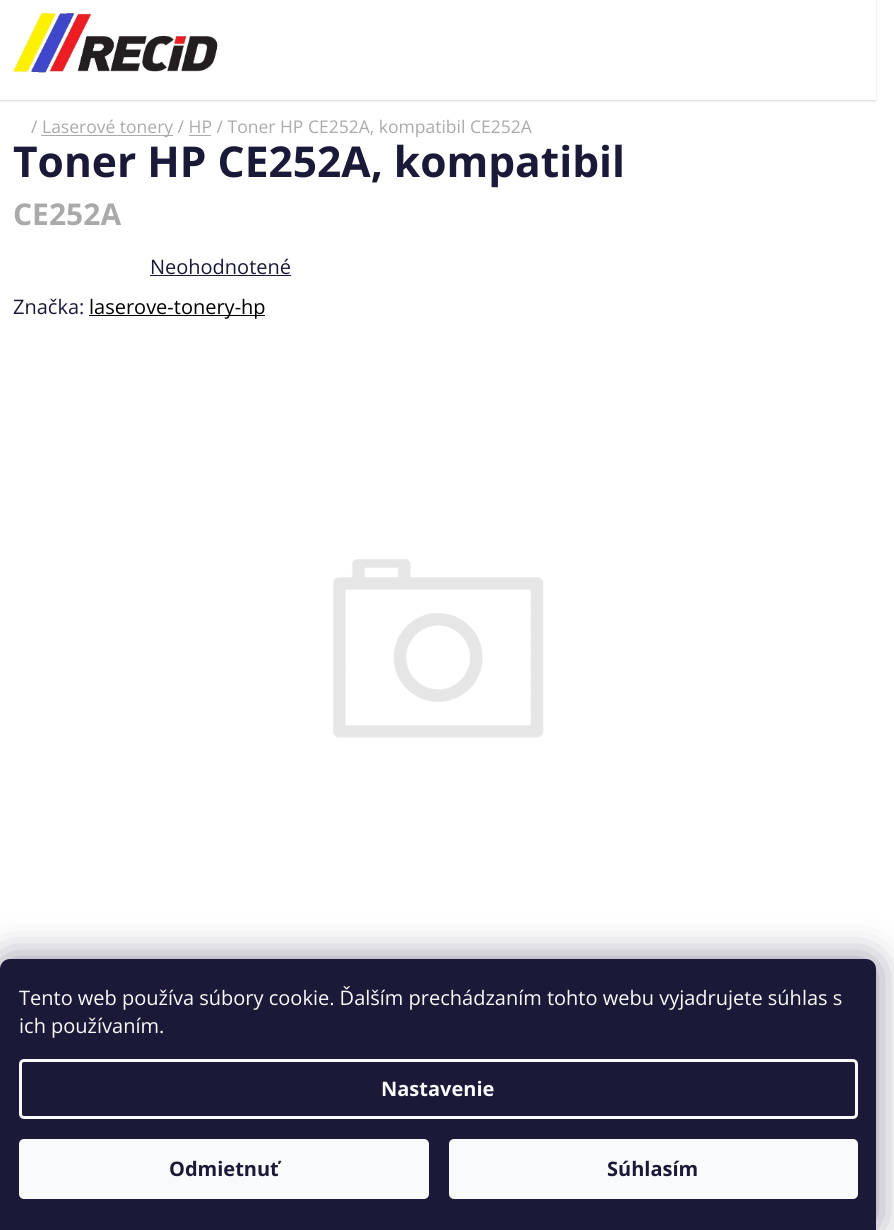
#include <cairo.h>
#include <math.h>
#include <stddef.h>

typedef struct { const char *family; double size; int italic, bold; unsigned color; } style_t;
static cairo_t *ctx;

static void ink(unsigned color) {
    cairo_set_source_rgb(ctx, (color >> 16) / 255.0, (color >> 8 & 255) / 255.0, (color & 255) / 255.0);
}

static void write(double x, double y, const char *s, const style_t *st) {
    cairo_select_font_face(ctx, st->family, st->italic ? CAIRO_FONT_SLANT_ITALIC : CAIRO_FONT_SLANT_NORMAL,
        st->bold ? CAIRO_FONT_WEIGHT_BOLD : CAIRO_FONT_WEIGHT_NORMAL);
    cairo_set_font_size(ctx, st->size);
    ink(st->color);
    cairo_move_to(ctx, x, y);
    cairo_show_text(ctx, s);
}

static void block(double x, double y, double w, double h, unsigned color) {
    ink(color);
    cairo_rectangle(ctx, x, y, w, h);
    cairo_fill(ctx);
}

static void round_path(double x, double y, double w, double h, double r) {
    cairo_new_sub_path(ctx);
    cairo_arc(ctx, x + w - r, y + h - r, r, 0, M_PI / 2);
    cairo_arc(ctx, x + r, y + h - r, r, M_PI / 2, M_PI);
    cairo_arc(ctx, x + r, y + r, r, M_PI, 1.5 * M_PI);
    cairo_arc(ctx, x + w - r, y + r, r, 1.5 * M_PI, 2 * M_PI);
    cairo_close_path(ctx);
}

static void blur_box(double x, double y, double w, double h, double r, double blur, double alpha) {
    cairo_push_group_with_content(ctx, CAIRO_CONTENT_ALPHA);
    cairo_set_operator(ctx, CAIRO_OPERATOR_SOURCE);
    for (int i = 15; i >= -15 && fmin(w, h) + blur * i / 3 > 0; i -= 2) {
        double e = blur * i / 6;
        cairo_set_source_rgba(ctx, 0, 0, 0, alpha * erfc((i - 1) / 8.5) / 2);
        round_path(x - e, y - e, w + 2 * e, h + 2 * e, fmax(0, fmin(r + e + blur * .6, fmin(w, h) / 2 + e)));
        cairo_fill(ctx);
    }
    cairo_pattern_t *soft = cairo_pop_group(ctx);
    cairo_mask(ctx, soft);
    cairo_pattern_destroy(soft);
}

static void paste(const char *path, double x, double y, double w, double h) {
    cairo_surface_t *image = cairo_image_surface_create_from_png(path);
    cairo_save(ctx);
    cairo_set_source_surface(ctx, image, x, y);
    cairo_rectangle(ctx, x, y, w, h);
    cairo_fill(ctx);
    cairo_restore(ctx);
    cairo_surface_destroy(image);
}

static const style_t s1 = {"Open Sans", 17.5, 0, 0, 0xaaaaaa};
static const style_t s2 = {"Open Sans", 42.5, 0, 1, 0x1a1937};
static const style_t s3 = {"Open Sans", 30, 0, 1, 0xaaaaaa};
static const style_t s4 = {"Open Sans", 20, 0, 0, 0x1a1937};
static const style_t s5 = {"Open Sans", 20, 0, 0, 0x000000};
static const style_t s6 = {"Open Sans", 20, 0, 0, 0xf8fafb};
static const style_t s7 = {"Open Sans", 20, 0, 1, 0xf8fafb};
static const style_t s8 = {"Open Sans", 20, 0, 1, 0x1a1937};

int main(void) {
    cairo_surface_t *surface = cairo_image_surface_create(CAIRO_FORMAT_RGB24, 894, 1230);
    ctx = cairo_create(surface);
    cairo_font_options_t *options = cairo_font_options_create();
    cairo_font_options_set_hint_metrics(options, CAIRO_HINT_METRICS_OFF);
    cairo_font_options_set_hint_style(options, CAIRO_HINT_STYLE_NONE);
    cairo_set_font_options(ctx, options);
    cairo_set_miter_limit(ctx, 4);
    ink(0xffffff);
    cairo_paint(ctx);
    cairo_save(ctx);
    cairo_set_fill_rule(ctx, CAIRO_FILL_RULE_EVEN_ODD);
    cairo_new_path(ctx);
    cairo_move_to(ctx, 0, 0);
    cairo_line_to(ctx, 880, 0);
    cairo_line_to(ctx, 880, 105);
    cairo_line_to(ctx, 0, 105);
    cairo_close_path(ctx);
    cairo_move_to(ctx, 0, 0);
    cairo_line_to(ctx, 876, 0);
    cairo_line_to(ctx, 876, 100);
    cairo_line_to(ctx, 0, 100);
    cairo_close_path(ctx);
    cairo_clip(ctx);
    ink(0x000000);
    blur_box(0, 1, 876, 100, 0, 1, 0.16);
    cairo_restore(ctx);
    paste("pic1.png", 12, 12, 206, 61);
    write(31, 133, "/", &s1);
    block(41, 135, 132, 1, 0xaaaaaa);
    write(42, 133, "Laserové tonery / HP / Toner HP CE252A, kompatibil CE252A", &s1);
    block(189, 135, 22, 1, 0xaaaaaa);
    write(13, 177, "Toner HP CE252A, kompatibil", &s2);
    write(13, 225, "CE252A", &s3);
    write(150, 274, "Neohodnotené", &s4);
    block(150, 275, 141, 1, 0x1a1937);
    write(13, 314, "Značka:", &s4);
    block(89, 315, 176, 1, 0x000000);
    write(89, 314, "laserove-tonery-hp", &s5);
    paste("pic2.png", 333, 559, 211, 179);
    ink(0x1b1939);
    blur_box(0, 959, 876, 271, 10, 19, 0.5);
    ink(0x1a1937);
    cairo_new_path(ctx);
    cairo_move_to(ctx, 10, 959);
    cairo_line_to(ctx, 866, 959);
    cairo_curve_to(ctx, 871.5, 959, 876, 963.5, 876, 969);
    cairo_line_to(ctx, 876, 1230);
    cairo_line_to(ctx, 0, 1230);
    cairo_line_to(ctx, 0, 969);
    cairo_curve_to(ctx, 0, 963.5, 4.5, 959, 10, 959);
    cairo_close_path(ctx);
    cairo_fill(ctx);
    write(19, 1005, "Tento web používa súbory cookie. Ďalším prechádzaním tohto webu vyjadrujete súhlas s", &s6);
    write(19, 1033, "ich používaním.", &s6);
    round_path(20.5, 1060.5, 836, 57, 3.5);
    cairo_set_line_width(ctx, 3);
    cairo_stroke(ctx);
    write(381, 1096, "Nastavenie", &s7);
    round_path(19, 1139, 410, 60, 5);
    cairo_fill(ctx);
    write(169, 1176, "Odmietnuť", &s8);
    ink(0xf8fafb);
    round_path(449, 1139, 409, 60, 5);
    cairo_fill(ctx);
    write(607, 1176, "Súhlasím", &s8);
    cairo_surface_write_to_png(surface, "screenshot.png");
    cairo_font_options_destroy(options);
    cairo_destroy(ctx);
    cairo_surface_destroy(surface);
    return 0;
}
